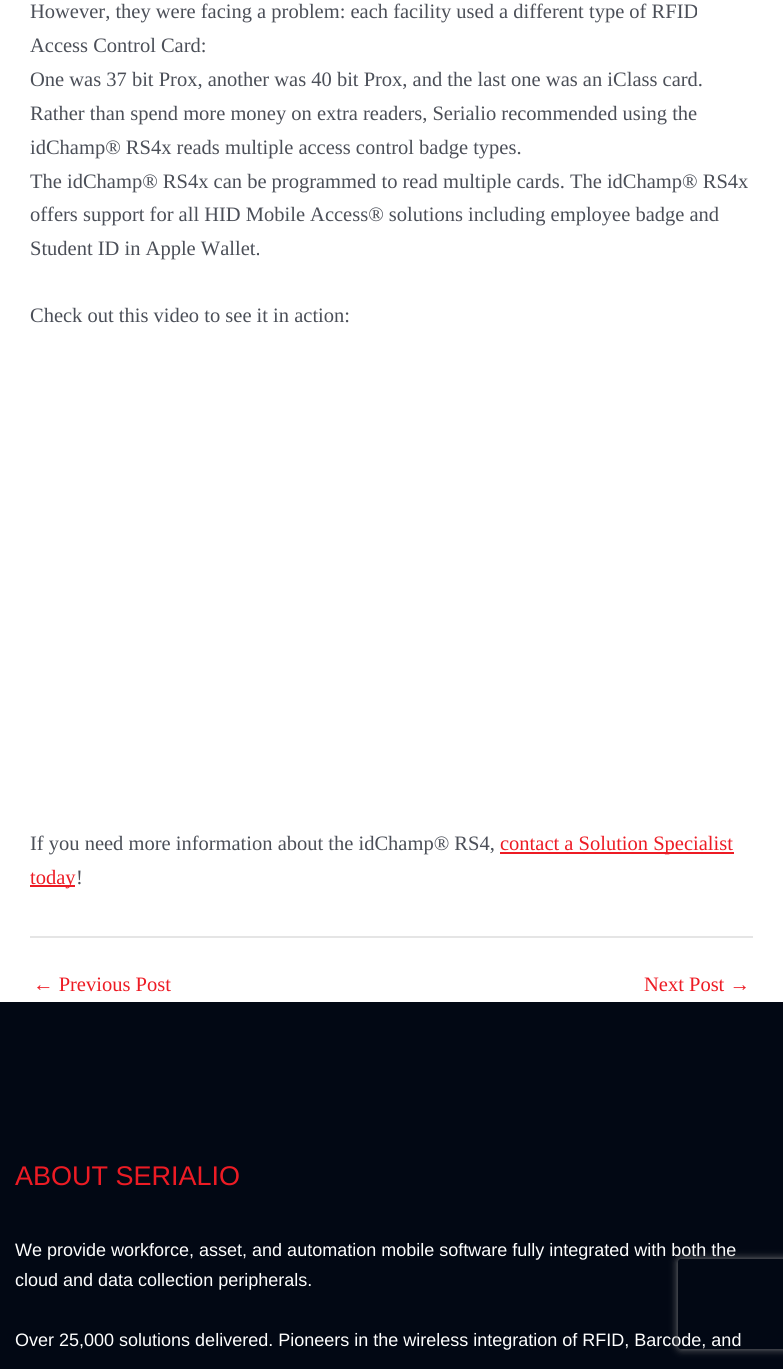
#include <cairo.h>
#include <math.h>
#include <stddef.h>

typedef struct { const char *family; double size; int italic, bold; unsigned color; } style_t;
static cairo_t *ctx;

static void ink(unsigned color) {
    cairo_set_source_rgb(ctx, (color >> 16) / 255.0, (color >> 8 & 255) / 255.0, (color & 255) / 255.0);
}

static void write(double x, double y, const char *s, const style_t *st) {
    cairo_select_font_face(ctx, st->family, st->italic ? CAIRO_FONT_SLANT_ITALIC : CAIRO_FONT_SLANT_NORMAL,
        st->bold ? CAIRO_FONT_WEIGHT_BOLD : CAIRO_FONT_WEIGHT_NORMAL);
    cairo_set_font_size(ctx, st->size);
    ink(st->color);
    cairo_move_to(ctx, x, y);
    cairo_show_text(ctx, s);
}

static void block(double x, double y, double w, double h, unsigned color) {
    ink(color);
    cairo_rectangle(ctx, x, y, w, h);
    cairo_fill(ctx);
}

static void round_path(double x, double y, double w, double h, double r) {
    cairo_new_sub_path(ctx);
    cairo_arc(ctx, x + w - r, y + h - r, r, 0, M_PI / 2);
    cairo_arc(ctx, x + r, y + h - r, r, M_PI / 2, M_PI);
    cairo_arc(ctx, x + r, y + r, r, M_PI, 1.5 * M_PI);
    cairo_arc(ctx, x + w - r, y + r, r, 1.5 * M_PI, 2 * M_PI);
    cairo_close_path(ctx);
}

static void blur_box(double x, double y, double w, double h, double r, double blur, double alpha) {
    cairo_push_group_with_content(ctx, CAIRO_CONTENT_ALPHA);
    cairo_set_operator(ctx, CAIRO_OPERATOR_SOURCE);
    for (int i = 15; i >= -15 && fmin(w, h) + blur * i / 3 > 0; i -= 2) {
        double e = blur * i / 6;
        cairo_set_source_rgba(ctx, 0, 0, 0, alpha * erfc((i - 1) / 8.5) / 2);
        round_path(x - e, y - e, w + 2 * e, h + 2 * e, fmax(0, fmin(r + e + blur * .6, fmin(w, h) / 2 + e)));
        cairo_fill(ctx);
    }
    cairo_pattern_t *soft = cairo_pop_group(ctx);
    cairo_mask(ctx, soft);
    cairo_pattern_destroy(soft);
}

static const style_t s1 = {"Liberation Serif", 20.5, 0, 0, 0x4b4f58};
static const style_t s2 = {"Liberation Serif", 20.5, 0, 0, 0xed1b24};
static const style_t s3 = {"Liberation Sans", 27, 0, 0, 0xed1b24};
static const style_t s4 = {"Liberation Sans", 18, 0, 0, 0xffffff};

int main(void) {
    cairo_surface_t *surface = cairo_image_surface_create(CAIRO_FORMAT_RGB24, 783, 1369);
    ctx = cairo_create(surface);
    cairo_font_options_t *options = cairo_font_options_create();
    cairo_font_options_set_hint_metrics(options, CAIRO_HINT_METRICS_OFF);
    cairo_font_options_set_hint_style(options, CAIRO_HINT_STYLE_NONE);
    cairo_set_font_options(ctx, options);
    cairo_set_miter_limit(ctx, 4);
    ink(0xffffff);
    cairo_paint(ctx);
    write(30, 18, "However, they were facing a problem: each facility used a different type of RFID", &s1);
    write(30, 52, "Access Control Card:", &s1);
    write(30, 86, "One was 37 bit Prox, another was 40 bit Prox, and the last one was an iClass card.", &s1);
    write(30, 120, "Rather than spend more money on extra readers, Serialio recommended using the", &s1);
    write(30, 154, "idChamp® RS4x reads multiple access control badge types.", &s1);
    write(30, 188, "The idChamp® RS4x can be programmed to read multiple cards. The idChamp® RS4x", &s1);
    write(30, 221, "offers support for all HID Mobile Access® solutions including employee badge and", &s1);
    write(30, 255, "Student ID in Apple Wallet.", &s1);
    write(30, 322, "Check out this video to see it in action:", &s1);
    write(30, 850, "If you need more information about the idChamp® RS4,", &s1);
    block(500, 852, 234, 2, 0xed1b24);
    write(500, 850, "contact a Solution Specialist", &s2);
    block(30, 885, 45, 2, 0xed1b24);
    write(30, 884, "today", &s2);
    write(76, 884, "!", &s1);
    block(30, 936, 723, 2, 0xe5e5e5);
    write(33, 991, "← Previous Post", &s2);
    write(644, 991, "Next Post →", &s2);
    block(0, 1002, 783, 367, 0x020814);
    write(15, 1185, "ABOUT SERIALIO", &s3);
    write(15, 1256, "We provide workforce, asset, and automation mobile software fully integrated with both the", &s4);
    write(15, 1286, "cloud and data collection peripherals.", &s4);
    write(15, 1346, "Over 25,000 solutions delivered. Pioneers in the wireless integration of RFID, Barcode, and", &s4);
    cairo_save(ctx);
    cairo_set_fill_rule(ctx, CAIRO_FILL_RULE_EVEN_ODD);
    cairo_new_path(ctx);
    cairo_move_to(ctx, 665, 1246);
    cairo_line_to(ctx, 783, 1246);
    cairo_line_to(ctx, 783, 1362);
    cairo_line_to(ctx, 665, 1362);
    cairo_close_path(ctx);
    cairo_move_to(ctx, 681, 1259);
    cairo_line_to(ctx, 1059, 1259);
    cairo_curve_to(ctx, 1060.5, 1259, 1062, 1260.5, 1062, 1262);
    cairo_line_to(ctx, 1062, 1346);
    cairo_curve_to(ctx, 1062, 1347.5, 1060.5, 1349, 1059, 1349);
    cairo_line_to(ctx, 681, 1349);
    cairo_curve_to(ctx, 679.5, 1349, 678, 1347.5, 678, 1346);
    cairo_line_to(ctx, 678, 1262);
    cairo_curve_to(ctx, 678, 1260.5, 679.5, 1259, 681, 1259);
    cairo_close_path(ctx);
    cairo_clip(ctx);
    ink(0x808080);
    blur_box(678, 1259, 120, 90, 3, 4, 1);
    cairo_restore(ctx);
    cairo_surface_write_to_png(surface, "screenshot.png");
    cairo_font_options_destroy(options);
    cairo_destroy(ctx);
    cairo_surface_destroy(surface);
    return 0;
}
